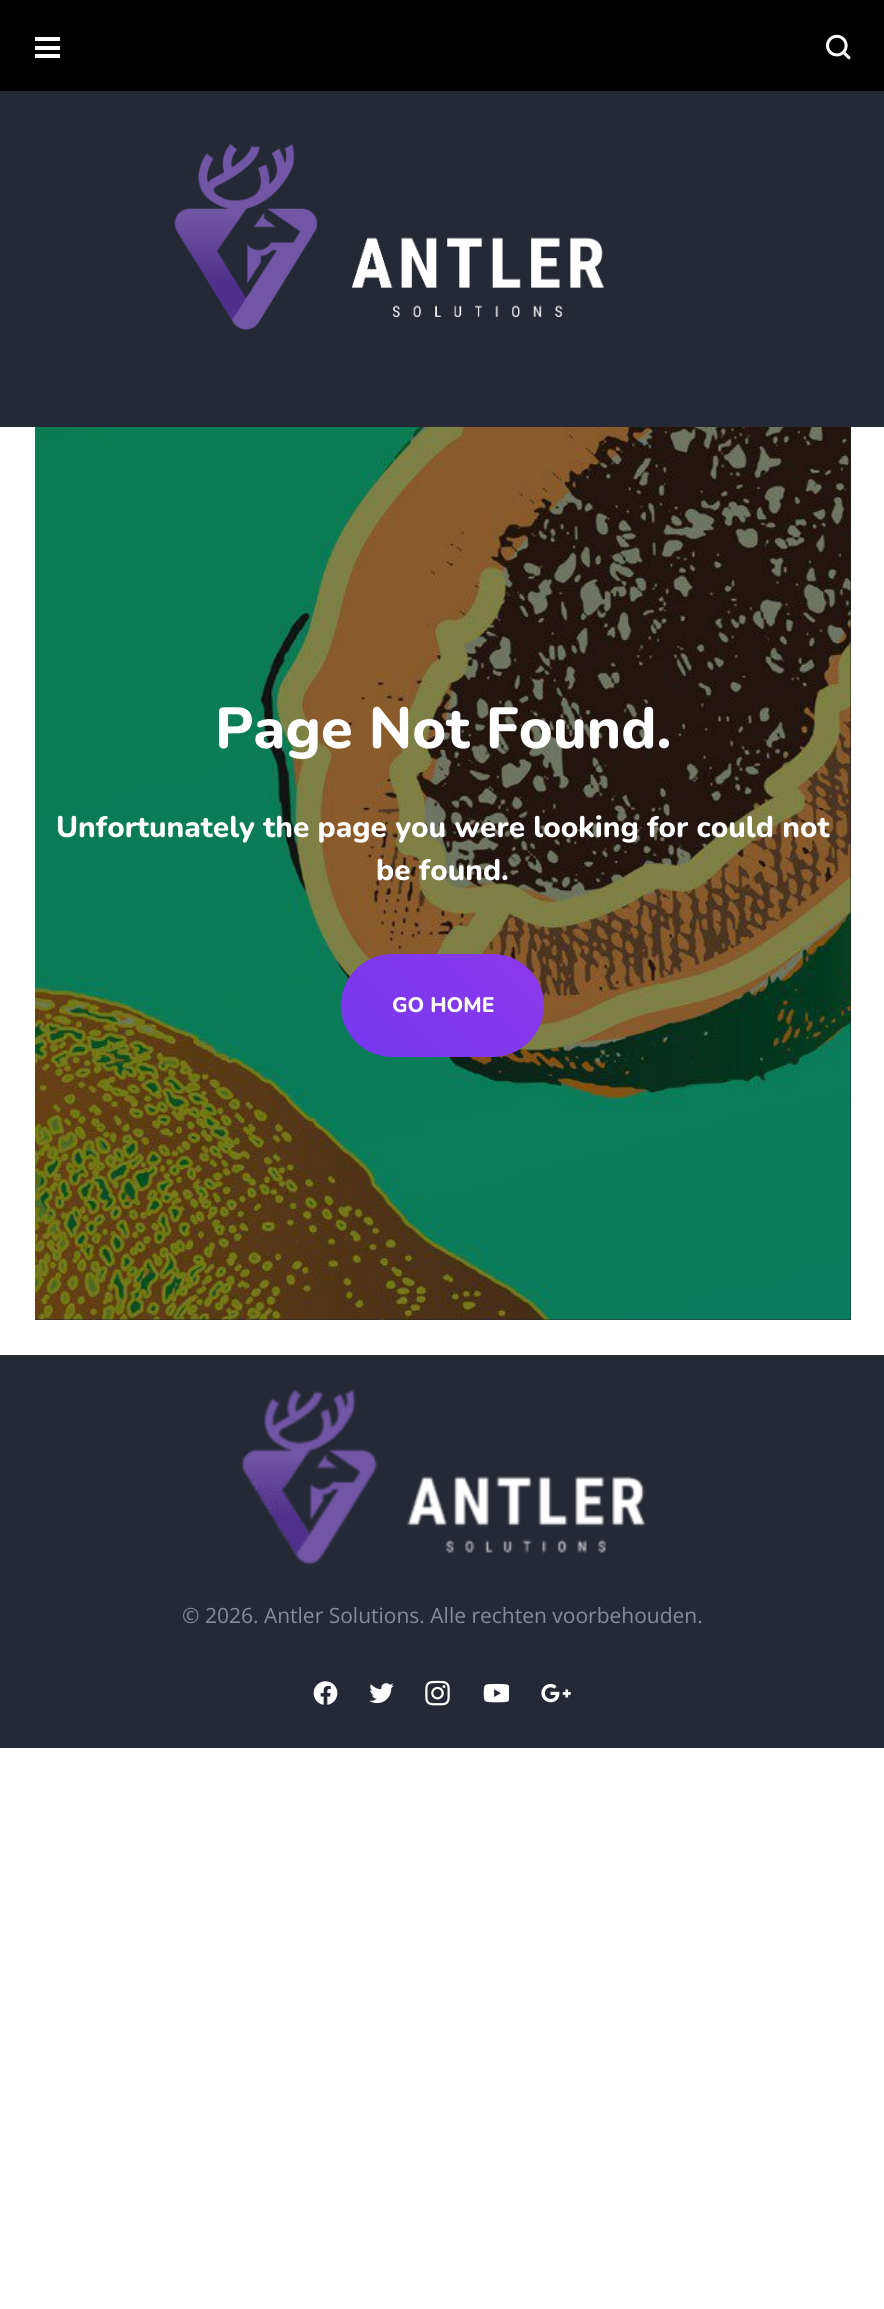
#include <cairo.h>
#include <math.h>
#include <stddef.h>

typedef struct { const char *family; double size; int italic, bold; unsigned color; } style_t;
static cairo_t *ctx;

static void ink(unsigned color) {
    cairo_set_source_rgb(ctx, (color >> 16) / 255.0, (color >> 8 & 255) / 255.0, (color & 255) / 255.0);
}

static void write(double x, double y, const char *s, const style_t *st) {
    cairo_select_font_face(ctx, st->family, st->italic ? CAIRO_FONT_SLANT_ITALIC : CAIRO_FONT_SLANT_NORMAL,
        st->bold ? CAIRO_FONT_WEIGHT_BOLD : CAIRO_FONT_WEIGHT_NORMAL);
    cairo_set_font_size(ctx, st->size);
    ink(st->color);
    cairo_move_to(ctx, x, y);
    cairo_show_text(ctx, s);
}

static void block(double x, double y, double w, double h, unsigned color) {
    ink(color);
    cairo_rectangle(ctx, x, y, w, h);
    cairo_fill(ctx);
}

static void round_path(double x, double y, double w, double h, double r) {
    cairo_new_sub_path(ctx);
    cairo_arc(ctx, x + w - r, y + h - r, r, 0, M_PI / 2);
    cairo_arc(ctx, x + r, y + h - r, r, M_PI / 2, M_PI);
    cairo_arc(ctx, x + r, y + r, r, M_PI, 1.5 * M_PI);
    cairo_arc(ctx, x + w - r, y + r, r, 1.5 * M_PI, 2 * M_PI);
    cairo_close_path(ctx);
}

static void paste(const char *path, double x, double y, double w, double h) {
    cairo_surface_t *image = cairo_image_surface_create_from_png(path);
    cairo_save(ctx);
    cairo_set_source_surface(ctx, image, x, y);
    cairo_rectangle(ctx, x, y, w, h);
    cairo_fill(ctx);
    cairo_restore(ctx);
    cairo_surface_destroy(image);
}

static const style_t s1 = {"Nunito ExtraBold", 57.75, 0, 0, 0xffffff};
static const style_t s2 = {"Nunito ExtraBold", 29.75, 0, 0, 0xffffff};
static const style_t s3 = {"Nunito ExtraBold", 21, 0, 0, 0xffffff};
static const style_t s4 = {"Open Sans", 21, 0, 0, 0x868c9d};

int main(void) {
    cairo_surface_t *surface = cairo_image_surface_create(CAIRO_FORMAT_RGB24, 884, 2309);
    ctx = cairo_create(surface);
    cairo_font_options_t *options = cairo_font_options_create();
    cairo_font_options_set_hint_metrics(options, CAIRO_HINT_METRICS_OFF);
    cairo_font_options_set_hint_style(options, CAIRO_HINT_STYLE_NONE);
    cairo_set_font_options(ctx, options);
    cairo_set_miter_limit(ctx, 4);
    cairo_pattern_t *gradient;
    ink(0xffffff);
    cairo_paint(ctx);
    block(0, 0, 884, 91, 0x000000);
    block(35, 46, 25, 4, 0xffffff);
    block(35, 37, 25, 4, 0xffffff);
    block(35, 54, 25, 4, 0xffffff);
    paste("pic1.png", 826, 34, 25, 26);
    block(0, 91, 884, 336, 0x252935);
    paste("pic2.png", 174, 143, 430, 187);
    block(35, 427, 816, 893, 0x252935);
    paste("pic3.png", 35, 427, 816, 893);
    write(215, 748, "Page Not Found.", &s1);
    write(56, 837, "Unfortunately the page you were looking for could not", &s2);
    write(376, 880, "be found.", &s2);
    gradient = cairo_pattern_create_linear(366, 1082, 519, 929);
    cairo_pattern_add_color_stop_rgba(gradient, 0, 0.463, 0.22, 0.929, 1);
    cairo_pattern_add_color_stop_rgba(gradient, 1, 0.549, 0.22, 0.929, 1);
    cairo_set_source(ctx, gradient);
    cairo_pattern_destroy(gradient);
    round_path(341, 954, 203, 103, 51.5);
    cairo_fill(ctx);
    write(392, 1012, "GO HOME", &s3);
    block(0, 1355, 884, 393, 0x252935);
    paste("pic4.png", 241, 1389, 405, 176);
    write(182, 1623, "© 2026. Antler Solutions. Alle rechten voorbehouden.", &s4);
    paste("pic5.png", 313, 1681, 25, 24);
    paste("pic6.png", 369, 1683, 25, 21);
    paste("pic7.png", 425, 1680, 25, 26);
    paste("pic8.png", 483, 1683, 26, 20);
    paste("pic9.png", 541, 1683, 30, 20);
    cairo_surface_write_to_png(surface, "screenshot.png");
    cairo_font_options_destroy(options);
    cairo_destroy(ctx);
    cairo_surface_destroy(surface);
    return 0;
}
